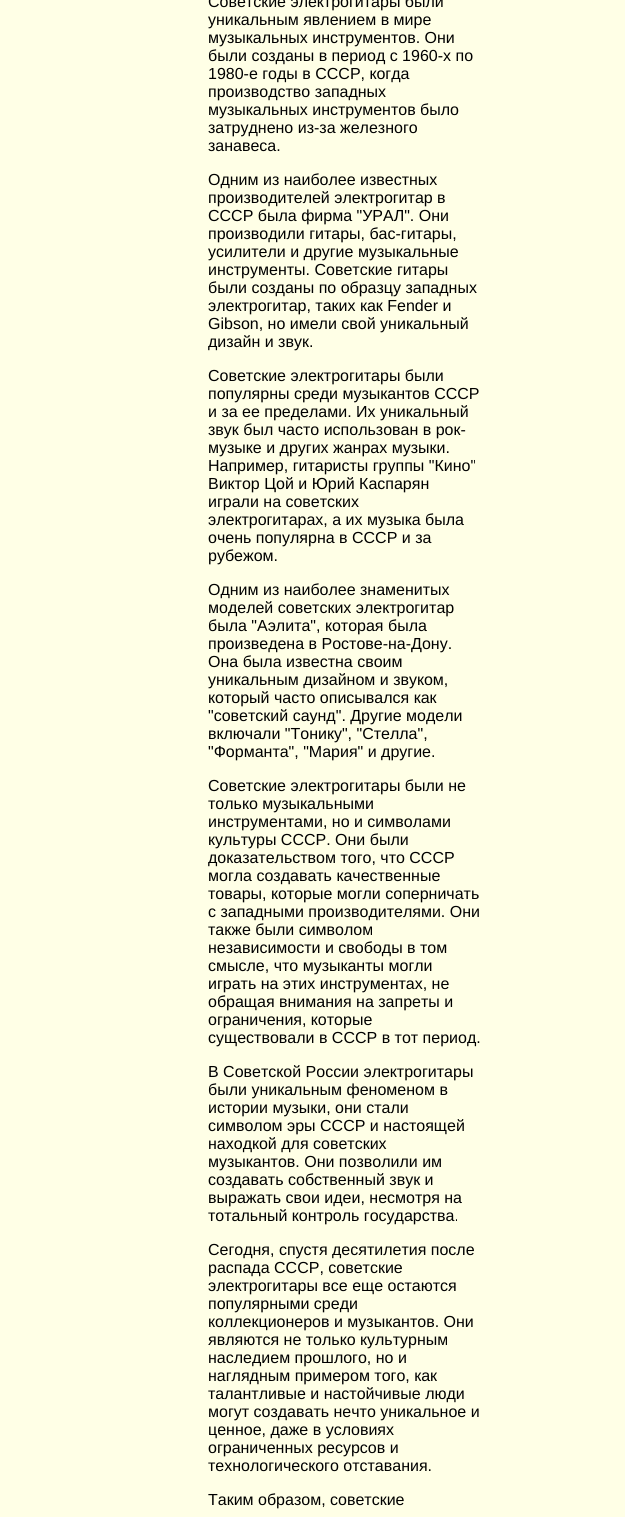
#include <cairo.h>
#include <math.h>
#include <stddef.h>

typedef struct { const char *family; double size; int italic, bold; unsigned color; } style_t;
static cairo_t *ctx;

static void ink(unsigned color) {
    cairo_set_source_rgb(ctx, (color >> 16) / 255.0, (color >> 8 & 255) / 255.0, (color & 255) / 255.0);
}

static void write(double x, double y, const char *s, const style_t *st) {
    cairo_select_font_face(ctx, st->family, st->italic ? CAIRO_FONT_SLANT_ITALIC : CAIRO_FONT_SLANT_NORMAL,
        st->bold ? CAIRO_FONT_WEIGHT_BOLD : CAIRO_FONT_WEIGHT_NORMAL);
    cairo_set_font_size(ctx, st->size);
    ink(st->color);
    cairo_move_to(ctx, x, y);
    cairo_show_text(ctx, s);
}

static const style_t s1 = {"Liberation Sans", 16, 0, 0, 0x000000};

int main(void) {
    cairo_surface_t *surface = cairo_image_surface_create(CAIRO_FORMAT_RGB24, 625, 1517);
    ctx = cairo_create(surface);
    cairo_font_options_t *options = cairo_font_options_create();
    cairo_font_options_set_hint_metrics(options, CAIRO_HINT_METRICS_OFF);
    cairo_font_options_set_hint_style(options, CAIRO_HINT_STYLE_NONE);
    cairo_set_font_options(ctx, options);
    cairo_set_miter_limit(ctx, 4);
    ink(0xffffe6);
    cairo_paint(ctx);
    write(208, 7, "Советские электрогитары были", &s1);
    write(208, 25, "уникальным явлением в мире", &s1);
    write(208, 43, "музыкальных инструментов. Они", &s1);
    write(208, 61, "были созданы в период с 1960-х по", &s1);
    write(208, 79, "1980-е годы в СССР, когда", &s1);
    write(208, 97, "производство западных", &s1);
    write(208, 115, "музыкальных инструментов было", &s1);
    write(208, 133, "затруднено из-за железного", &s1);
    write(208, 151, "занавеса.", &s1);
    write(208, 185, "Одним из наиболее известных", &s1);
    write(208, 203, "производителей электрогитар в", &s1);
    write(208, 221, "СССР была фирма \"УРАЛ\". Они", &s1);
    write(208, 239, "производили гитары, бас-гитары,", &s1);
    write(208, 257, "усилители и другие музыкальные", &s1);
    write(208, 275, "инструменты. Советские гитары", &s1);
    write(208, 293, "были созданы по образцу западных", &s1);
    write(208, 311, "электрогитар, таких как Fender и", &s1);
    write(208, 329, "Gibson, но имели свой уникальный", &s1);
    write(208, 347, "дизайн и звук.", &s1);
    write(208, 381, "Советские электрогитары были", &s1);
    write(208, 399, "популярны среди музыкантов СССР", &s1);
    write(208, 417, "и за ее пределами. Их уникальный", &s1);
    write(208, 435, "звук был часто использован в рок-", &s1);
    write(208, 453, "музыке и других жанрах музыки.", &s1);
    write(208, 471, "Например, гитаристы группы \"Кино\"", &s1);
    write(208, 489, "Виктор Цой и Юрий Каспарян", &s1);
    write(208, 507, "играли на советских", &s1);
    write(208, 525, "электрогитарах, а их музыка была", &s1);
    write(208, 543, "очень популярна в СССР и за", &s1);
    write(208, 561, "рубежом.", &s1);
    write(208, 595, "Одним из наиболее знаменитых", &s1);
    write(208, 613, "моделей советских электрогитар", &s1);
    write(208, 631, "была \"Аэлита\", которая была", &s1);
    write(208, 649, "произведена в Ростове-на-Дону.", &s1);
    write(208, 667, "Она была известна своим", &s1);
    write(208, 685, "уникальным дизайном и звуком,", &s1);
    write(208, 703, "который часто описывался как", &s1);
    write(208, 721, "\"советский саунд\". Другие модели", &s1);
    write(208, 739, "включали \"Тонику\", \"Стелла\",", &s1);
    write(208, 757, "\"Форманта\", \"Мария\" и другие.", &s1);
    write(208, 791, "Советские электрогитары были не", &s1);
    write(208, 809, "только музыкальными", &s1);
    write(208, 827, "инструментами, но и символами", &s1);
    write(208, 845, "культуры СССР. Они были", &s1);
    write(208, 863, "доказательством того, что СССР", &s1);
    write(208, 881, "могла создавать качественные", &s1);
    write(208, 899, "товары, которые могли соперничать", &s1);
    write(208, 917, "с западными производителями. Они", &s1);
    write(208, 935, "также были символом", &s1);
    write(208, 953, "независимости и свободы в том", &s1);
    write(208, 971, "смысле, что музыканты могли", &s1);
    write(208, 989, "играть на этих инструментах, не", &s1);
    write(208, 1007, "обращая внимания на запреты и", &s1);
    write(208, 1025, "ограничения, которые", &s1);
    write(208, 1043, "существовали в СССР в тот период.", &s1);
    write(208, 1077, "В Советской России электрогитары", &s1);
    write(208, 1095, "были уникальным феноменом в", &s1);
    write(208, 1113, "истории музыки, они стали", &s1);
    write(208, 1131, "символом эры СССР и настоящей", &s1);
    write(208, 1149, "находкой для советских", &s1);
    write(208, 1167, "музыкантов. Они позволили им", &s1);
    write(208, 1185, "создавать собственный звук и", &s1);
    write(208, 1203, "выражать свои идеи, несмотря на", &s1);
    write(208, 1221, "тотальный контроль государства.", &s1);
    write(208, 1255, "Сегодня, спустя десятилетия после", &s1);
    write(208, 1273, "распада СССР, советские", &s1);
    write(208, 1291, "электрогитары все еще остаются", &s1);
    write(208, 1309, "популярными среди", &s1);
    write(208, 1327, "коллекционеров и музыкантов. Они", &s1);
    write(208, 1345, "являются не только культурным", &s1);
    write(208, 1363, "наследием прошлого, но и", &s1);
    write(208, 1381, "наглядным примером того, как", &s1);
    write(208, 1399, "талантливые и настойчивые люди", &s1);
    write(208, 1417, "могут создавать нечто уникальное и", &s1);
    write(208, 1435, "ценное, даже в условиях", &s1);
    write(208, 1453, "ограниченных ресурсов и", &s1);
    write(208, 1471, "технологического отставания.", &s1);
    write(208, 1505, "Таким образом, советские", &s1);
    cairo_surface_write_to_png(surface, "screenshot.png");
    cairo_font_options_destroy(options);
    cairo_destroy(ctx);
    cairo_surface_destroy(surface);
    return 0;
}
